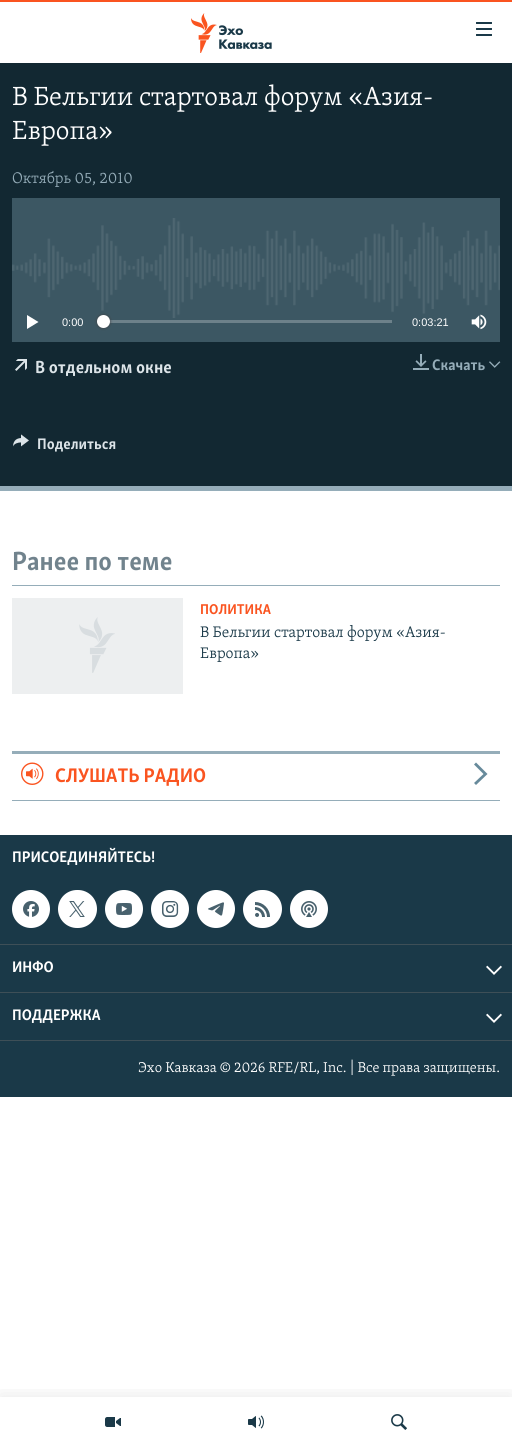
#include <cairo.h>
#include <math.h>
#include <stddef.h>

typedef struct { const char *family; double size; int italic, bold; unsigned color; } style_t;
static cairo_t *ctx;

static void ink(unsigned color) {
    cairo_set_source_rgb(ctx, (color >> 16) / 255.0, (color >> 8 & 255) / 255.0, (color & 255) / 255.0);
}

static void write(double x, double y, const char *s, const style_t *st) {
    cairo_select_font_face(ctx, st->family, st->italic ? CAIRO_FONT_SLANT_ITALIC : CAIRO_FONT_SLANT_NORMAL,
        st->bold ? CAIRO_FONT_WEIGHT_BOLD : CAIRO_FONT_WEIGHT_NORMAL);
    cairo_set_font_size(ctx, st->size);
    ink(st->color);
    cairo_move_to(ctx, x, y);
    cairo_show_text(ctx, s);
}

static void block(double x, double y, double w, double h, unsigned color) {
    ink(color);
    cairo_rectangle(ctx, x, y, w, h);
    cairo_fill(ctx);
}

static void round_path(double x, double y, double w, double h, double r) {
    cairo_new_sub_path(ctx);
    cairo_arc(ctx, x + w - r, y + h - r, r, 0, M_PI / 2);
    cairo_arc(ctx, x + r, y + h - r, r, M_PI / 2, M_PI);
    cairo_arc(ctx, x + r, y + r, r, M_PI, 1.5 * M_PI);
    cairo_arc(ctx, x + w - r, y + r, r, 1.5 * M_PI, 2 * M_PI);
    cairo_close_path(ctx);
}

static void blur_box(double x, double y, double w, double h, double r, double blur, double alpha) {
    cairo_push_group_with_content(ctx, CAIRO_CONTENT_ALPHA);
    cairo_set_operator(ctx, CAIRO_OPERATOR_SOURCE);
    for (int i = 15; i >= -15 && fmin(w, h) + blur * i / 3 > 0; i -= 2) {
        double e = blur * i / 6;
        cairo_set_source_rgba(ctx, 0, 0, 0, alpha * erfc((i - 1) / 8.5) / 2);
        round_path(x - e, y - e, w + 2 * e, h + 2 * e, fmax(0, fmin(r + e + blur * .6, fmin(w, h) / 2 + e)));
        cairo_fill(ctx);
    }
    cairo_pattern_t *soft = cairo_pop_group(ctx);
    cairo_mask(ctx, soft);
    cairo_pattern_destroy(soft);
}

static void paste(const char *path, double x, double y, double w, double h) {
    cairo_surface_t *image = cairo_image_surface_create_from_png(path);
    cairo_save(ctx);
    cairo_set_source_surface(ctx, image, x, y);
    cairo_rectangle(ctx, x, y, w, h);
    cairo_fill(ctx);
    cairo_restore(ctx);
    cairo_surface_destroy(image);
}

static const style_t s1 = {"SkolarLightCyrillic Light", 27, 0, 0, 0xffffff};
static const style_t s2 = {"SkolarLightCyrillic Light", 15.75, 0, 0, 0x95adb9};
static const style_t s3 = {"Liberation Sans", 11, 0, 0, 0xffffff};
static const style_t s4 = {"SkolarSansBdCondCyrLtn", 18, 0, 1, 0xdce4e8};
static const style_t s5 = {"SkolarSansBdCondCyrLtn", 15.75, 0, 1, 0x95adb9};
static const style_t s6 = {"SkolarSansBdCondCyrLtn", 15.75, 0, 1, 0xdce4e8};
static const style_t s7 = {"SkolarSansBdCondCyrLtn", 27, 0, 1, 0x71838d};
static const style_t s8 = {"SkolarSansBdCondCyrLtn", 14.6, 0, 1, 0xfa5420};
static const style_t s9 = {"SkolarLightCyrillic Light", 15.75, 0, 0, 0x1a3948};
static const style_t s10 = {"SkolarSansBdCondCyrLtn", 20.25, 0, 1, 0xfa5420};
static const style_t s11 = {"SkolarSansBdCondCyrLtn", 15.75, 0, 1, 0xffffff};
static const style_t s12 = {"SkolarLightCyrillic Light", 14.6, 0, 0, 0xffffff};

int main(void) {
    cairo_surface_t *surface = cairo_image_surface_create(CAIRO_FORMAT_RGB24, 512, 1447);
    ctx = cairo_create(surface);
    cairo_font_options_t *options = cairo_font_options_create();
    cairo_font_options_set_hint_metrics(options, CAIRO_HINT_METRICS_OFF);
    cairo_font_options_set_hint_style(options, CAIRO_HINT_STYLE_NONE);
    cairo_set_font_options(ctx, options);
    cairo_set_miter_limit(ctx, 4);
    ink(0xffffff);
    cairo_paint(ctx);
    block(0, 0, 512, 2, 0xfa5420);
    paste("pic1.png", 191, 13, 81, 40);
    paste("pic2.png", 476, 22, 16, 14);
    cairo_save(ctx);
    cairo_rectangle(ctx, 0, 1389, 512, 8);
    cairo_clip(ctx);
    ink(0x000000);
    blur_box(0, 1397, 512, 50, 0, 10, 0.1);
    cairo_restore(ctx);
    paste("pic3.png", 105, 1417, 16, 10);
    paste("pic4.png", 248, 1415, 16, 14);
    paste("pic5.png", 391, 1414, 16, 16);
    block(0, 63, 512, 423, 0x122832);
    block(0, 486, 512, 5, 0x95adb9);
    write(12, 105, "В Бельгии стартовал форум «Азия-", &s1);
    write(12, 139, "Европа»", &s1);
    write(12, 183, "Октябрь 05, 2010", &s2);
    block(12, 198, 488, 144, 0x3c5763);
    paste("pic6.png", 12, 218, 488, 100);
    ink(0xffffff);
    cairo_new_path(ctx);
    cairo_move_to(ctx, 27, 329);
    cairo_line_to(ctx, 38.5, 322);
    cairo_line_to(ctx, 27, 315);
    cairo_close_path(ctx);
    cairo_fill(ctx);
    write(62, 326, "0:00", &s3);
    block(103, 320, 289, 3, 0x6d818a);
    ink(0x414144);
    blur_box(97, 315, 13, 13, 6.5, 1.5, 1);
    ink(0xffffff);
    cairo_arc(ctx, 103.5, 321.5, 6.5, 0, 2 * M_PI);
    cairo_fill(ctx);
    write(412, 326, "0:03:21", &s3);
    paste("pic7.png", 471, 314, 16, 16);
    paste("pic8.png", 15, 359, 12, 12);
    write(35, 373, "В отдельном окне", &s4);
    paste("pic9.png", 413, 354, 16, 16);
    write(432, 370, "Скачать", &s5);
    paste("pic10.png", 489, 361, 12, 7);
    paste("pic11.png", 13, 434, 16, 13);
    write(37, 449, "Поделиться", &s6);
    block(12, 585, 488, 1, 0x95adb9);
    write(12, 570, "Ранее по теме", &s7);
    block(12, 598, 171, 96, 0xedeff0);
    paste("pic12.png", 79, 617, 36, 56);
    write(200, 614, "ПОЛИТИКА", &s8);
    write(200, 637, "В Бельгии стартовал форум «Азия-", &s9);
    write(200, 658, "Европа»", &s9);
    block(12, 751, 488, 3, 0x95adb9);
    block(12, 800, 488, 1, 0x95adb9);
    paste("pic13.png", 21, 762, 23, 23);
    write(55, 782, "СЛУШАТЬ РАДИО", &s10);
    ink(0x678a9b);
    cairo_new_path(ctx);
    cairo_move_to(ctx, 476, 785);
    cairo_line_to(ctx, 487.5, 774);
    cairo_line_to(ctx, 476, 762.5);
    cairo_line_to(ctx, 474, 764.5);
    cairo_line_to(ctx, 483.5, 774);
    cairo_line_to(ctx, 474, 783);
    cairo_close_path(ctx);
    cairo_fill(ctx);
    block(0, 835, 512, 262, 0x1a3948);
    block(0, 1040, 512, 1, 0x3e4f57);
    write(12, 862, "ПРИСОЕДИНЯЙТЕСЬ!", &s11);
    cairo_new_path(ctx);
    cairo_arc(ctx, 31, 909, 19, 0, 2 * M_PI);
    cairo_fill(ctx);
    paste("pic14.png", 23, 901, 16, 16);
    round_path(58, 890, 39, 38, 19);
    cairo_fill(ctx);
    paste("pic15.png", 69, 901, 16, 16);
    cairo_arc(ctx, 124, 909, 19, 0, 2 * M_PI);
    cairo_fill(ctx);
    paste("pic16.png", 116, 903, 16, 12);
    cairo_arc(ctx, 170, 909, 19, 0, 2 * M_PI);
    cairo_fill(ctx);
    paste("pic17.png", 162, 901, 17, 16);
    cairo_arc(ctx, 216, 909, 19, 0, 2 * M_PI);
    cairo_fill(ctx);
    paste("pic18.png", 208, 902, 16, 14);
    round_path(243, 890, 39, 38, 19);
    cairo_fill(ctx);
    paste("pic19.png", 255, 902, 15, 15);
    cairo_arc(ctx, 309, 909, 19, 0, 2 * M_PI);
    cairo_fill(ctx);
    paste("pic20.png", 301, 901, 16, 16);
    block(0, 944, 512, 1, 0x3e4f57);
    write(12, 972, "ИНФО", &s11);
    paste("pic21.png", 486, 965, 16, 10);
    block(0, 992, 512, 1, 0x3e4f57);
    write(12, 1020, "ПОДДЕРЖКА", &s11);
    paste("pic21.png", 486, 1013, 16, 10);
    write(138, 1072, "Эхо Кавказа © 2026 RFE/RL, Inc. | Все права защищены.", &s12);
    cairo_surface_write_to_png(surface, "screenshot.png");
    cairo_font_options_destroy(options);
    cairo_destroy(ctx);
    cairo_surface_destroy(surface);
    return 0;
}
